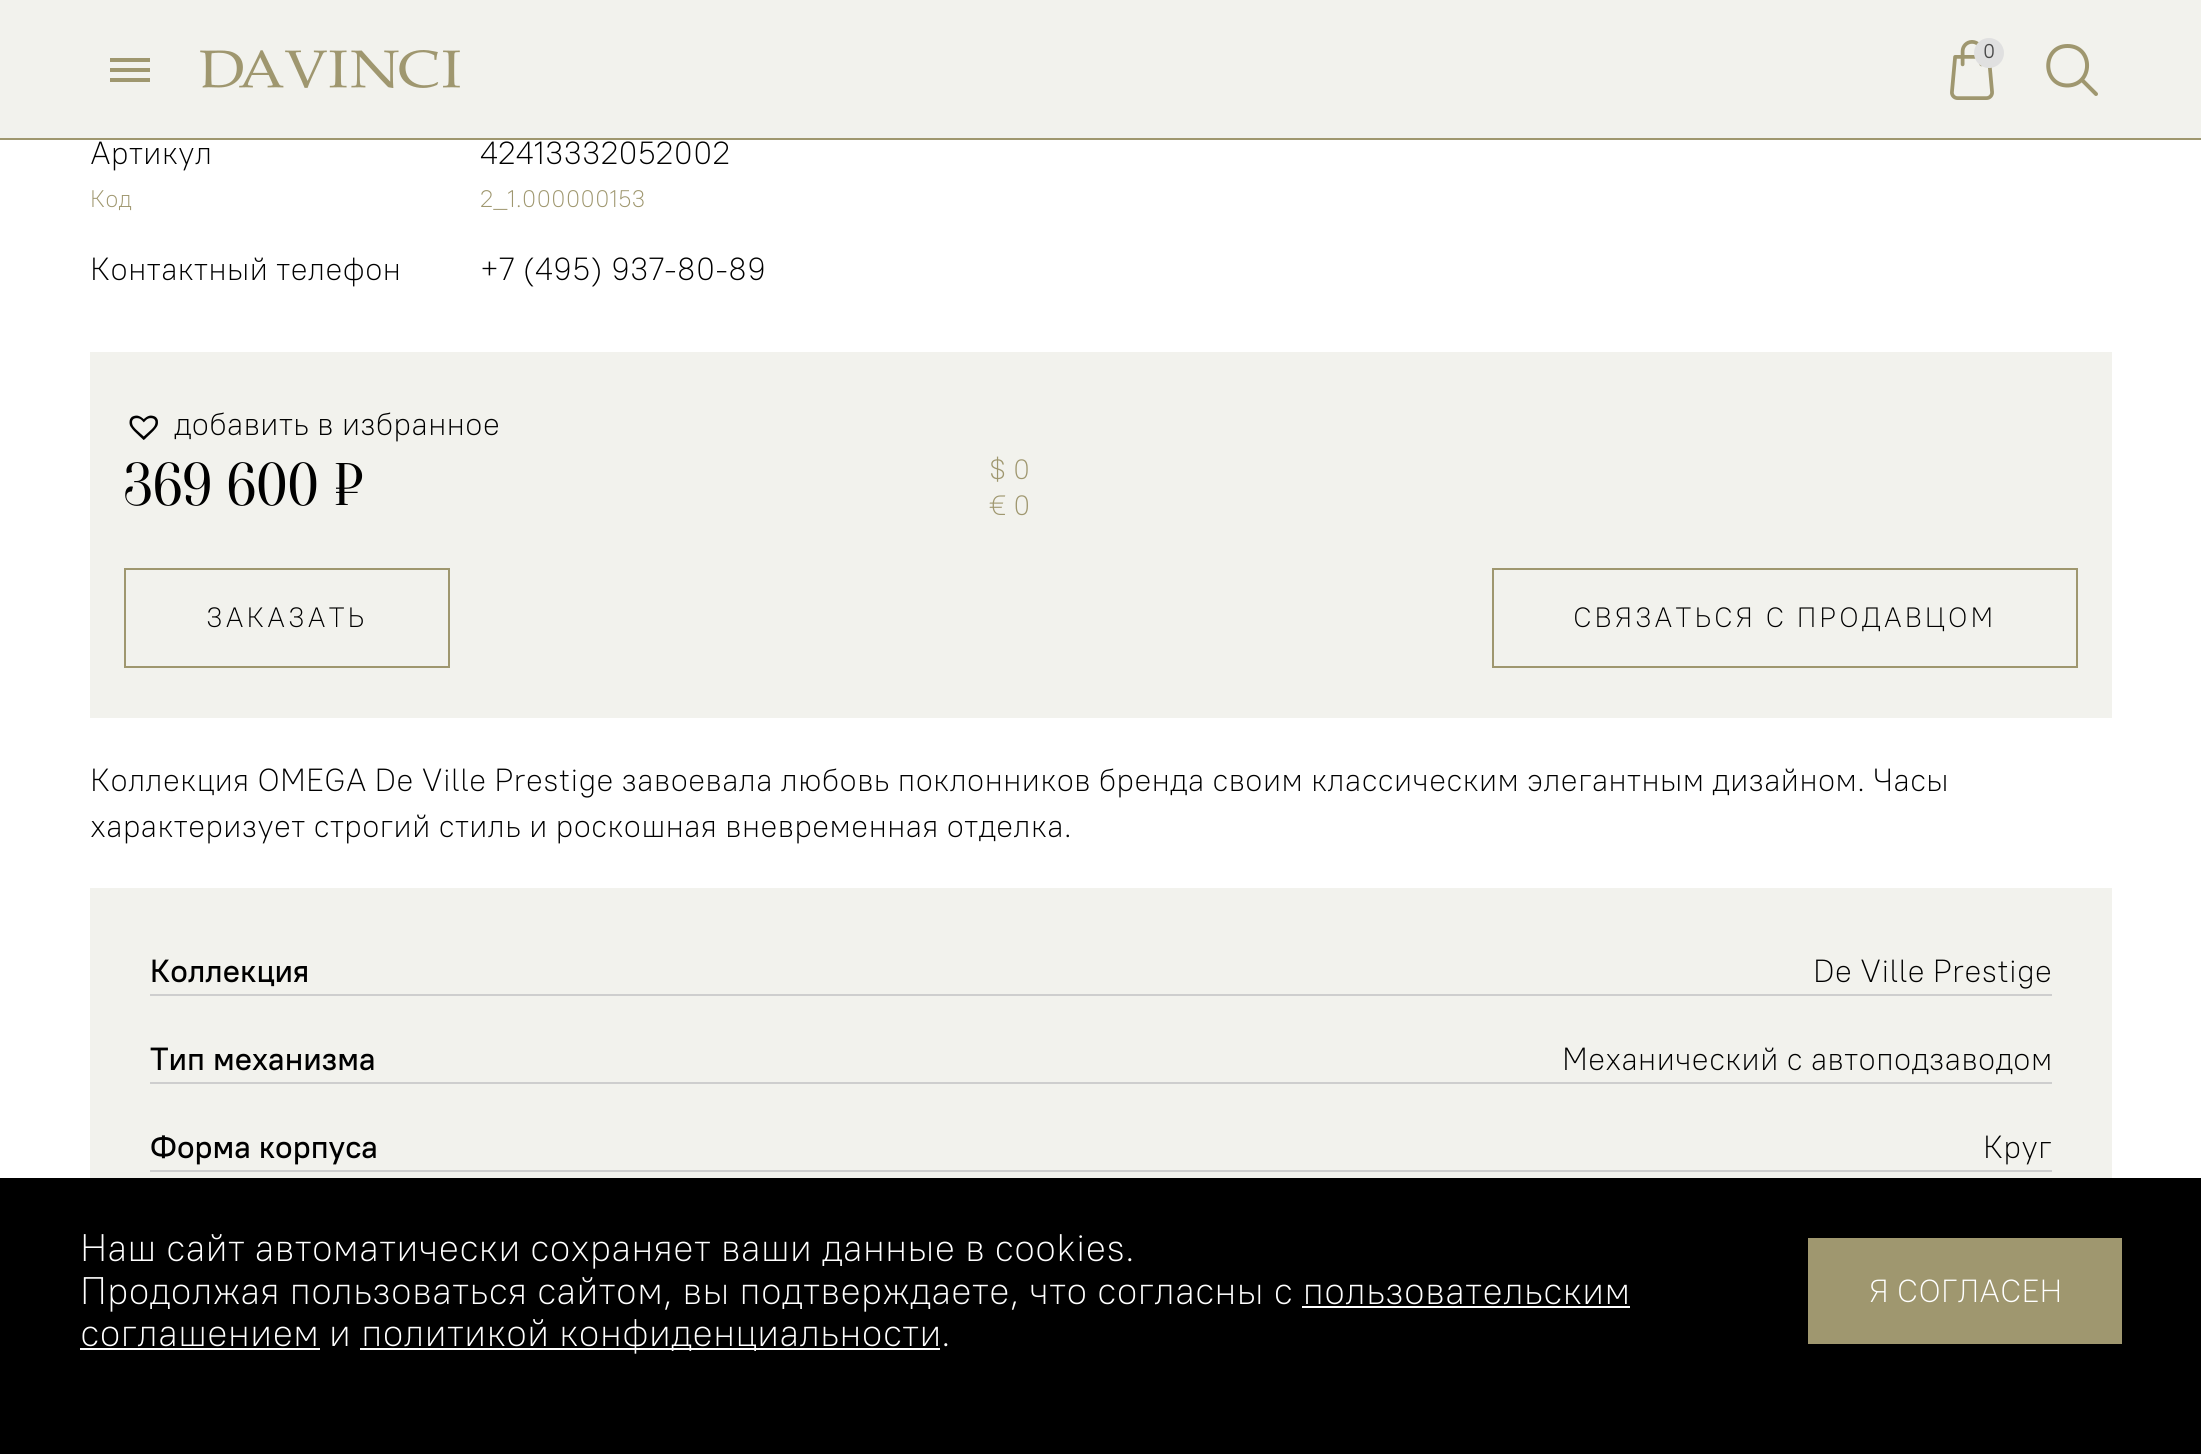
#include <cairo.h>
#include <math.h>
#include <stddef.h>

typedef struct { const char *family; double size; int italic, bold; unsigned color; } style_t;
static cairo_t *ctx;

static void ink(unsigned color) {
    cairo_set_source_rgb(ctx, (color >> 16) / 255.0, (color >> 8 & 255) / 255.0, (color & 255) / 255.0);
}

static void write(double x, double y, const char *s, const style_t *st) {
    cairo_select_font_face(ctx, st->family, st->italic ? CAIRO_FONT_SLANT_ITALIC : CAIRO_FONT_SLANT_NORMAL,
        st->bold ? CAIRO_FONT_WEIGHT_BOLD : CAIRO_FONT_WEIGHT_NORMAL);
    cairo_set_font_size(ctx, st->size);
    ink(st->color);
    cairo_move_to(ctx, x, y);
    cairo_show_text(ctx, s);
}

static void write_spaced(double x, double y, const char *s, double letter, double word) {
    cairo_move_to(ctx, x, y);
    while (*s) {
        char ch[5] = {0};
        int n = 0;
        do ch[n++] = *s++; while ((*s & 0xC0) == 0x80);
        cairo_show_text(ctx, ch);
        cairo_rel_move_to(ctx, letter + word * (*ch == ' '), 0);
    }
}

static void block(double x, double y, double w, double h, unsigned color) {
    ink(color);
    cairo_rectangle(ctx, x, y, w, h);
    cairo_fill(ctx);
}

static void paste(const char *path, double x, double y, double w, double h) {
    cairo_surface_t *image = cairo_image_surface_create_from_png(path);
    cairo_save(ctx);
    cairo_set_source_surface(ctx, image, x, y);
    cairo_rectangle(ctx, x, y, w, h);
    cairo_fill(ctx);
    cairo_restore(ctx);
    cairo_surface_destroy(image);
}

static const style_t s1 = {"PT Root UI", 20, 0, 0, 0x4a4a4a};
static const style_t s2 = {"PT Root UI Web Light", 32, 0, 0, 0x000000};
static const style_t s3 = {"PT Root UI Web Light", 24, 0, 0, 0x9f976f};
static const style_t s4 = {"Oranienbaum", 60, 0, 0, 0x000000};
static const style_t s5 = {"PT Root UI Web Light", 28, 0, 0, 0x9f976f};
static const style_t s6 = {"PT Root UI Web Medium", 32, 0, 0, 0x000000};
static const style_t s7 = {"PT Root UI Web Light", 38.4, 0, 0, 0xffffff};
static const style_t s8 = {"PT Root UI Web Light", 32, 0, 0, 0xffffff};

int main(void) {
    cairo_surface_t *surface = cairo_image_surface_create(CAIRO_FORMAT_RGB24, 2201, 1454);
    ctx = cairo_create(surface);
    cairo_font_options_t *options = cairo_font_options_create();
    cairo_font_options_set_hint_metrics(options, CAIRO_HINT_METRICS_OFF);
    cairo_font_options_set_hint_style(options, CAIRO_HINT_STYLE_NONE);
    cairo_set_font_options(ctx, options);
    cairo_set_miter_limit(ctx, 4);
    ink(0xffffff);
    cairo_paint(ctx);
    block(0, 0, 2201, 138, 0xf2f2ed);
    block(0, 138, 2201, 2, 0x9f976f);
    block(110, 68, 40, 4, 0x9f976f);
    block(110, 58, 40, 4, 0x9f976f);
    block(110, 78, 40, 4, 0x9f976f);
    paste("pic1.png", 200, 50, 260, 38);
    paste("pic2.png", 1950, 40, 44, 60);
    ink(0xe0e0e0);
    cairo_arc(ctx, 1989, 53, 15, 0, 2 * M_PI);
    cairo_fill(ctx);
    write(1983, 58, "0", &s1);
    cairo_new_path(ctx);
    cairo_move_to(ctx, 2082.5, 80.5);
    cairo_line_to(ctx, 2096, 94);
    cairo_move_to(ctx, 2067.5, 46);
    cairo_curve_to(ctx, 2041.5, 46, 2042, 86, 2068, 85.5);
    cairo_curve_to(ctx, 2093.5, 84.5, 2093.5, 46, 2067.5, 46);
    cairo_close_path(ctx);
    ink(0x9f976f);
    cairo_set_line_width(ctx, 4);
    cairo_set_line_cap(ctx, CAIRO_LINE_CAP_ROUND);
    cairo_stroke(ctx);
    write(90, 164, "Артикул", &s2);
    write(480, 164, "42413332052002", &s2);
    write(90, 207, "Код", &s3);
    write(480, 207, "2_1.000000153", &s3);
    write(90, 280, "Контактный телефон", &s2);
    write(480, 280, "+7 (495) 937-80-89", &s2);
    block(90, 352, 2022, 366, 0xf2f2ed);
    paste("pic3.png", 129, 415, 29, 25);
    write(174, 435, "добавить в избранное", &s2);
    write(124, 505, "369 600 ¤", &s4);
    write(989, 479, "$ 0", &s5);
    write(989, 515, "€ 0", &s5);
    cairo_rectangle(ctx, 125, 569, 324, 98);
    cairo_set_line_width(ctx, 2);
    cairo_set_line_cap(ctx, CAIRO_LINE_CAP_BUTT);
    cairo_stroke(ctx);
    ink(0x000000);
    write_spaced(206, 627, "ЗАКАЗАТЬ", 2.8, 0);
    cairo_rectangle(ctx, 1493, 569, 584, 98);
    ink(0x9f976f);
    cairo_stroke(ctx);
    ink(0x000000);
    write_spaced(1573, 627, "СВЯЗАТЬСЯ С ПРОДАВЦОМ", 2.8, 0);
    write(90, 791, "Коллекция OMEGA De Ville Prestige завоевала любовь поклонников бренда своим классическим элегантным дизайном. Часы", &s2);
    write(90, 837, "характеризует строгий стиль и роскошная вневременная отделка.", &s2);
    block(90, 888, 2022, 290, 0xf2f2ed);
    block(150, 994, 1902, 2, 0xcecece);
    write(150, 982, "Коллекция", &s6);
    write(1813, 982, "De Ville Prestige", &s2);
    block(150, 1082, 1902, 2, 0xcecece);
    write(150, 1070, "Тип механизма", &s6);
    write(1562, 1070, "Механический с автоподзаводом", &s2);
    block(150, 1170, 1902, 2, 0xcecece);
    write(150, 1158, "Форма корпуса", &s6);
    write(1983, 1158, "Круг", &s2);
    block(0, 1178, 2201, 276, 0x000000);
    write(80, 1261, "Наш сайт автоматически сохраняет ваши данные в cookies.", &s7);
    write(80, 1304, "Продолжая пользоваться сайтом, вы подтверждаете, что согласны с пользовательским", &s7);
    write(80, 1346, "соглашением и", &s7);
    block(1302, 1306, 328, 2, 0xffffff);
    block(80, 1348, 240, 2, 0xffffff);
    block(360, 1348, 580, 2, 0xffffff);
    write(361, 1346, "политикой конфиденциальности", &s7);
    write(941, 1346, ".", &s7);
    block(1808, 1238, 314, 106, 0x9f976f);
    write(1869, 1302, "Я СОГЛАСЕН", &s8);
    cairo_surface_write_to_png(surface, "screenshot.png");
    cairo_font_options_destroy(options);
    cairo_destroy(ctx);
    cairo_surface_destroy(surface);
    return 0;
}
